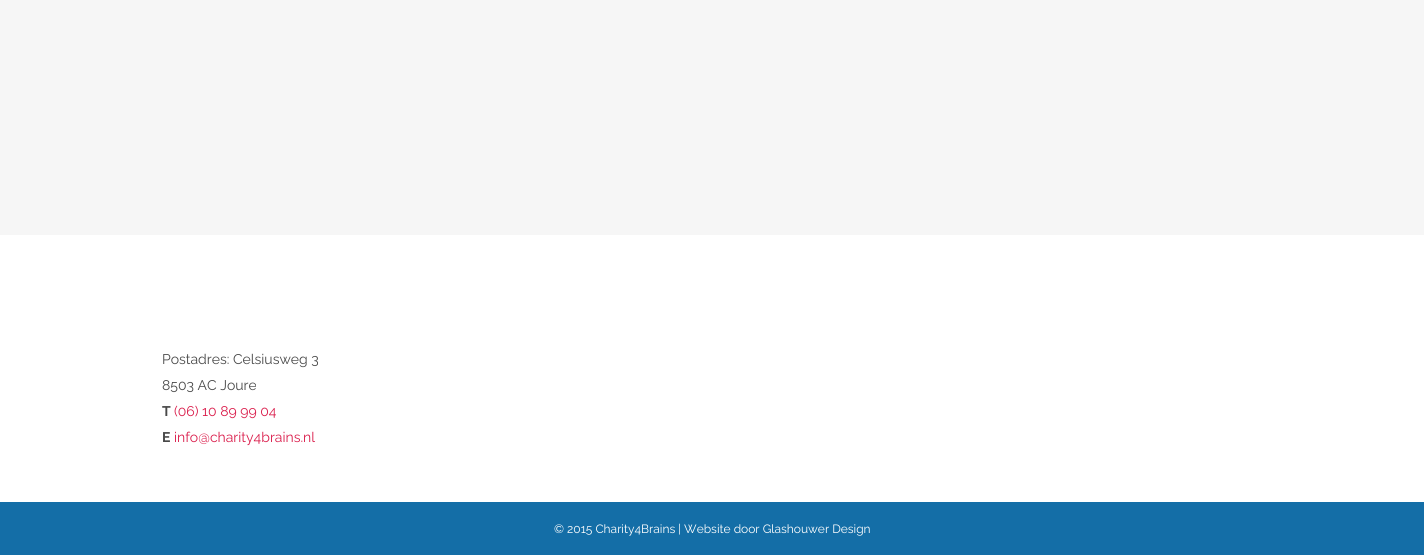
#include <cairo.h>
#include <math.h>
#include <stddef.h>

typedef struct { const char *family; double size; int italic, bold; unsigned color; } style_t;
static cairo_t *ctx;

static void ink(unsigned color) {
    cairo_set_source_rgb(ctx, (color >> 16) / 255.0, (color >> 8 & 255) / 255.0, (color & 255) / 255.0);
}

static void write(double x, double y, const char *s, const style_t *st) {
    cairo_select_font_face(ctx, st->family, st->italic ? CAIRO_FONT_SLANT_ITALIC : CAIRO_FONT_SLANT_NORMAL,
        st->bold ? CAIRO_FONT_WEIGHT_BOLD : CAIRO_FONT_WEIGHT_NORMAL);
    cairo_set_font_size(ctx, st->size);
    ink(st->color);
    cairo_move_to(ctx, x, y);
    cairo_show_text(ctx, s);
}

static void block(double x, double y, double w, double h, unsigned color) {
    ink(color);
    cairo_rectangle(ctx, x, y, w, h);
    cairo_fill(ctx);
}

static const style_t s1 = {"Raleway", 14, 0, 0, 0x494949};
static const style_t s2 = {"Raleway", 14, 0, 1, 0x494949};
static const style_t s3 = {"Raleway", 14, 0, 0, 0xda1e4c};
static const style_t s4 = {"Raleway", 12, 0, 0, 0xffffff};

int main(void) {
    cairo_surface_t *surface = cairo_image_surface_create(CAIRO_FORMAT_RGB24, 1424, 555);
    ctx = cairo_create(surface);
    cairo_font_options_t *options = cairo_font_options_create();
    cairo_font_options_set_hint_metrics(options, CAIRO_HINT_METRICS_OFF);
    cairo_font_options_set_hint_style(options, CAIRO_HINT_STYLE_NONE);
    cairo_set_font_options(ctx, options);
    cairo_set_miter_limit(ctx, 4);
    ink(0xf6f6f6);
    cairo_paint(ctx);
    block(0, 235, 1424, 267, 0xffffff);
    write(162, 364, "Postadres: Celsiusweg 3", &s1);
    write(162, 390, "8503 AC Joure", &s1);
    write(162, 416, "T", &s2);
    write(174, 416, "(06) 10 89 99 04", &s3);
    write(162, 442, "E", &s2);
    write(174, 442, "info@charity4brains.nl", &s3);
    block(0, 502, 1424, 53, 0x146ea7);
    write(554, 533, "© 2015 Charity4Brains | Website door Glashouwer Design", &s4);
    cairo_surface_write_to_png(surface, "screenshot.png");
    cairo_font_options_destroy(options);
    cairo_destroy(ctx);
    cairo_surface_destroy(surface);
    return 0;
}
